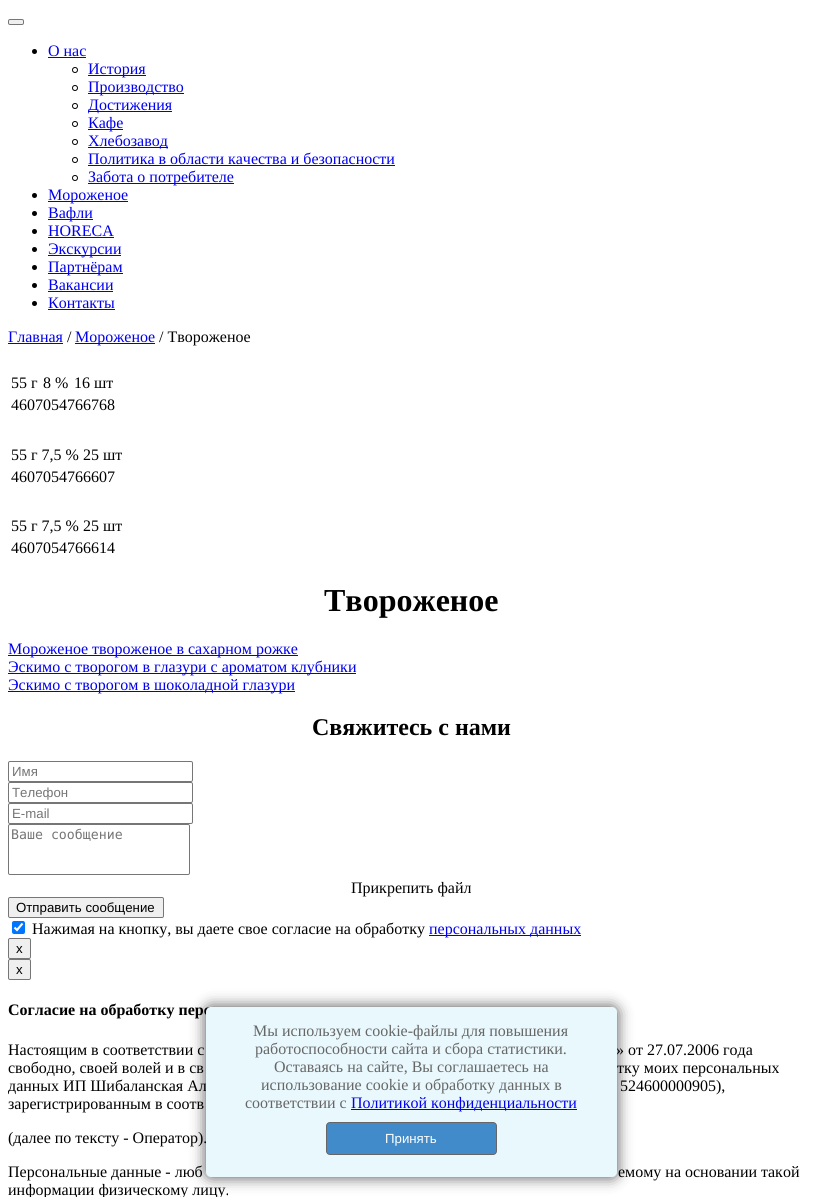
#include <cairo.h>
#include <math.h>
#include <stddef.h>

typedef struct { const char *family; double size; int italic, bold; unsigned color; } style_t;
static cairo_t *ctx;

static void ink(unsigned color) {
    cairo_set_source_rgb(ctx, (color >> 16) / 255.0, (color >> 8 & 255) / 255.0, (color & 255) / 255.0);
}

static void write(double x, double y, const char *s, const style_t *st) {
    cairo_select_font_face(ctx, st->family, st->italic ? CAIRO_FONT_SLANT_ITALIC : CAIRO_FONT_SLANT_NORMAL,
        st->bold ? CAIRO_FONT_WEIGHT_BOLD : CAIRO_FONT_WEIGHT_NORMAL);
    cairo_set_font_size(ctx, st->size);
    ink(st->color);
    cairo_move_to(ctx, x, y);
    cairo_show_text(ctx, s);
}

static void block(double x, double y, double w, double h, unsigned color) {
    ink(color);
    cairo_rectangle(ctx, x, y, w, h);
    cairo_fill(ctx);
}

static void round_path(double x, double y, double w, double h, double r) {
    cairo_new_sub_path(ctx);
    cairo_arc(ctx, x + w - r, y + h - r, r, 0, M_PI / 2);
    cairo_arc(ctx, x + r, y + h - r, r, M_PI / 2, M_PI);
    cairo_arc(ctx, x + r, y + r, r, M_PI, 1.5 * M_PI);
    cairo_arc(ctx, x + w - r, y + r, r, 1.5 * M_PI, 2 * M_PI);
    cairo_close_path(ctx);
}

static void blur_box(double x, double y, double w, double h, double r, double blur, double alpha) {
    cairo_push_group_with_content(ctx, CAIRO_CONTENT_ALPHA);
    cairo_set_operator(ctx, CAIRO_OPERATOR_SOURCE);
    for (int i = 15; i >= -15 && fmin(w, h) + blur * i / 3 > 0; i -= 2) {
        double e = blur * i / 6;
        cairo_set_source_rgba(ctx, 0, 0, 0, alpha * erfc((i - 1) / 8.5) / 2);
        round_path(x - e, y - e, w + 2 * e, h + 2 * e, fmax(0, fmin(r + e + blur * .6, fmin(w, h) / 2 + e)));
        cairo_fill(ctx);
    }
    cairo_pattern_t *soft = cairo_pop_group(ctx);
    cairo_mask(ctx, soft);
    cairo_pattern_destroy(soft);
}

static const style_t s1 = {"Liberation Serif", 16, 0, 0, 0x0000ee};
static const style_t s2 = {"Liberation Serif", 16, 0, 0, 0x000000};
static const style_t s3 = {"Liberation Serif", 32, 0, 1, 0x000000};
static const style_t s4 = {"Liberation Serif", 24, 0, 1, 0x000000};
static const style_t s5 = {"Liberation Sans", 13.25, 0, 0, 0x757575};
static const style_t s6 = {"DejaVu Sans Mono", 13.25, 0, 0, 0x757575};
static const style_t s7 = {"Liberation Sans", 13.25, 0, 0, 0x000000};
static const style_t s8 = {"Liberation Serif", 16, 0, 1, 0x000000};
static const style_t s9 = {"Liberation Serif", 16, 0, 0, 0x666666};
static const style_t s10 = {"Liberation Sans", 13.25, 0, 0, 0xffffff};

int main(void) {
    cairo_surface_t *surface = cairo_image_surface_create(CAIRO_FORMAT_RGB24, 822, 1197);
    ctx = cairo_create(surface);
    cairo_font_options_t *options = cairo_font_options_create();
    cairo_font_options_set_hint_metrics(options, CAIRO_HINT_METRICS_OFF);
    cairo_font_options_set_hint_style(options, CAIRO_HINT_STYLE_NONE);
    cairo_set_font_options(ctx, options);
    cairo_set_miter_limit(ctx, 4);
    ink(0xffffff);
    cairo_paint(ctx);
    ink(0xefefef);
    round_path(8.5, 19.5, 15, 5, 1.5);
    cairo_fill_preserve(ctx);
    ink(0x767676);
    cairo_set_line_width(ctx, 1);
    cairo_stroke(ctx);
    ink(0x000000);
    cairo_arc(ctx, 34.5, 51.5, 2.5, 0, 2 * M_PI);
    cairo_fill(ctx);
    write(48, 56, "О нас", &s1);
    block(48, 57, 38, 1, 0x0000ee);
    cairo_new_path(ctx);
    cairo_arc(ctx, 75, 70, 2.5, 0, 2 * M_PI);
    ink(0x000000);
    cairo_stroke(ctx);
    block(88, 75, 58, 1, 0x0000ee);
    write(88, 74, "История", &s1);
    cairo_new_path(ctx);
    cairo_arc(ctx, 75, 88, 2.5, 0, 2 * M_PI);
    ink(0x000000);
    cairo_stroke(ctx);
    block(88, 93, 96, 1, 0x0000ee);
    write(88, 92, "Производство", &s1);
    cairo_new_path(ctx);
    cairo_arc(ctx, 75, 106, 2.5, 0, 2 * M_PI);
    ink(0x000000);
    cairo_stroke(ctx);
    block(88, 111, 84, 1, 0x0000ee);
    write(88, 110, "Достижения", &s1);
    cairo_new_path(ctx);
    cairo_arc(ctx, 75, 124, 2.5, 0, 2 * M_PI);
    ink(0x000000);
    cairo_stroke(ctx);
    block(88, 129, 35, 1, 0x0000ee);
    write(88, 128, "Кафе", &s1);
    cairo_new_path(ctx);
    cairo_arc(ctx, 75, 142, 2.5, 0, 2 * M_PI);
    ink(0x000000);
    cairo_stroke(ctx);
    block(88, 147, 80, 1, 0x0000ee);
    write(88, 146, "Хлебозавод", &s1);
    cairo_new_path(ctx);
    cairo_arc(ctx, 75, 160, 2.5, 0, 2 * M_PI);
    ink(0x000000);
    cairo_stroke(ctx);
    write(88, 164, "Политика в области качества и безопасности", &s1);
    block(88, 165, 307, 1, 0x0000ee);
    cairo_new_path(ctx);
    cairo_arc(ctx, 75, 178, 2.5, 0, 2 * M_PI);
    ink(0x000000);
    cairo_stroke(ctx);
    block(88, 183, 146, 1, 0x0000ee);
    write(88, 182, "Забота о потребителе", &s1);
    ink(0x000000);
    cairo_new_path(ctx);
    cairo_arc(ctx, 34.5, 195.5, 2.5, 0, 2 * M_PI);
    cairo_fill(ctx);
    block(48, 201, 80, 1, 0x0000ee);
    write(48, 200, "Мороженое", &s1);
    ink(0x000000);
    cairo_new_path(ctx);
    cairo_arc(ctx, 34.5, 213.5, 2.5, 0, 2 * M_PI);
    cairo_fill(ctx);
    block(48, 219, 45, 1, 0x0000ee);
    write(48, 218, "Вафли", &s1);
    ink(0x000000);
    cairo_new_path(ctx);
    cairo_arc(ctx, 34.5, 231.5, 2.5, 0, 2 * M_PI);
    cairo_fill(ctx);
    write(48, 236, "HORECA", &s1);
    block(48, 237, 66, 1, 0x0000ee);
    ink(0x000000);
    cairo_new_path(ctx);
    cairo_arc(ctx, 34.5, 249.5, 2.5, 0, 2 * M_PI);
    cairo_fill(ctx);
    block(48, 255, 73, 1, 0x0000ee);
    write(48, 254, "Экскурсии", &s1);
    ink(0x000000);
    cairo_new_path(ctx);
    cairo_arc(ctx, 34.5, 267.5, 2.5, 0, 2 * M_PI);
    cairo_fill(ctx);
    block(48, 273, 75, 1, 0x0000ee);
    write(48, 272, "Партнёрам", &s1);
    ink(0x000000);
    cairo_new_path(ctx);
    cairo_arc(ctx, 34.5, 285.5, 2.5, 0, 2 * M_PI);
    cairo_fill(ctx);
    write(48, 290, "Вакансии", &s1);
    block(48, 291, 65, 1, 0x0000ee);
    ink(0x000000);
    cairo_new_path(ctx);
    cairo_arc(ctx, 34.5, 303.5, 2.5, 0, 2 * M_PI);
    cairo_fill(ctx);
    write(48, 308, "Контакты", &s1);
    block(48, 309, 67, 1, 0x0000ee);
    write(8, 342, "Главная", &s1);
    block(8, 343, 55, 1, 0x0000ee);
    write(67, 342, "/", &s2);
    block(75, 343, 80, 1, 0x0000ee);
    write(75, 342, "Мороженое", &s1);
    write(159, 342, "/ Твороженое", &s2);
    write(11, 388, "55 г", &s2);
    write(43, 388, "8 %", &s2);
    write(74, 388, "16 шт", &s2);
    write(11, 410, "4607054766768", &s2);
    write(11, 460, "55 г 7,5 % 25 шт", &s2);
    write(11, 482, "4607054766607", &s2);
    write(11, 531, "55 г 7,5 % 25 шт", &s2);
    write(11, 553, "4607054766614", &s2);
    write(324, 611, "Твороженое", &s3);
    block(8, 655, 290, 1, 0x0000ee);
    write(8, 654, "Мороженое твороженое в сахарном рожке", &s1);
    block(8, 673, 348, 1, 0x0000ee);
    write(8, 672, "Эскимо с творогом в глазури с ароматом клубники", &s1);
    block(8, 691, 287, 1, 0x0000ee);
    write(8, 690, "Эскимо с творогом в шоколадной глазури", &s1);
    write(312, 735, "Свяжитесь с нами", &s4);
    round_path(8.5, 761.5, 184, 20, 1.5);
    ink(0x767676);
    cairo_stroke(ctx);
    write(12, 776, "Имя", &s5);
    round_path(8.5, 782.5, 184, 20, 1.5);
    ink(0x767676);
    cairo_stroke(ctx);
    write(12, 797, "Телефон", &s5);
    round_path(8.5, 803.5, 184, 20, 1.5);
    ink(0x767676);
    cairo_stroke(ctx);
    write(12, 818, "E-mail", &s5);
    round_path(8.5, 824.5, 181, 50, 1.5);
    ink(0x767676);
    cairo_stroke(ctx);
    write(11, 839, "Ваше сообщение", &s6);
    write(351, 893, "Прикрепить файл", &s2);
    ink(0xefefef);
    round_path(8.5, 897.5, 155, 20, 1.5);
    cairo_fill_preserve(ctx);
    ink(0x767676);
    cairo_stroke(ctx);
    write(16, 912, "Отправить сообщение", &s7);
    ink(0x0075ff);
    round_path(12, 921, 13, 13, 2);
    cairo_fill(ctx);
    cairo_new_path(ctx);
    cairo_move_to(ctx, 14.5, 927.5);
    cairo_line_to(ctx, 17, 930);
    cairo_line_to(ctx, 22.5, 923.5);
    ink(0xffffff);
    cairo_set_line_width(ctx, 2.1);
    cairo_stroke(ctx);
    write(32, 934, "Нажимая на кнопку, вы даете свое согласие на обработку", &s2);
    block(429, 935, 152, 1, 0x0000ee);
    write(429, 934, "персональных данных", &s1);
    ink(0xefefef);
    round_path(8.5, 938.5, 22, 20, 1.5);
    cairo_fill_preserve(ctx);
    ink(0x767676);
    cairo_set_line_width(ctx, 1);
    cairo_stroke(ctx);
    write(16, 953, "x", &s7);
    ink(0xefefef);
    round_path(8.5, 959.5, 22, 20, 1.5);
    cairo_fill_preserve(ctx);
    ink(0x767676);
    cairo_stroke(ctx);
    write(16, 974, "x", &s7);
    write(8, 1015, "Согласие на обработку перс", &s8);
    write(8, 1055, "Настоящим в соответствии с", &s2);
    write(616, 1055, "» от 27.07.2006 года", &s2);
    write(8, 1073, "свободно, своей волей и в св", &s2);
    write(617, 1073, "тку моих персональных", &s2);
    write(8, 1091, "данных ИП Шибаланская Ал", &s2);
    write(620, 1091, "524600000905),", &s2);
    write(8, 1109, "зарегистрированным в соотв", &s2);
    write(8, 1143, "(далее по тексту - Оператор).", &s2);
    write(8, 1177, "Персональные данные - люб", &s2);
    write(618, 1177, "емому на основании такой", &s2);
    write(8, 1195, "информации физическому лицу.", &s2);
    ink(0x000000);
    blur_box(206, 1007, 411, 170, 5, 7.5, 0.7);
    ink(0xe9f8fd);
    round_path(206, 1007, 411, 170, 5);
    cairo_fill(ctx);
    write(253, 1036, "Мы используем cookie-файлы для повышения", &s9);
    write(255, 1054, "работоспособности сайта и сбора статистики.", &s9);
    write(274, 1072, "Оставаясь на сайте, Вы соглашаетесь на", &s9);
    write(261, 1090, "использование cookie и обработку данных в", &s9);
    write(245, 1108, "соответствии с", &s9);
    block(351, 1109, 226, 1, 0x0000ee);
    write(351, 1108, "Политикой конфиденциальности", &s1);
    ink(0x428bca);
    round_path(326.5, 1122.5, 170, 32, 3.5);
    cairo_fill_preserve(ctx);
    ink(0x666666);
    cairo_stroke(ctx);
    write(385, 1143, "Принять", &s10);
    cairo_surface_write_to_png(surface, "screenshot.png");
    cairo_font_options_destroy(options);
    cairo_destroy(ctx);
    cairo_surface_destroy(surface);
    return 0;
}
